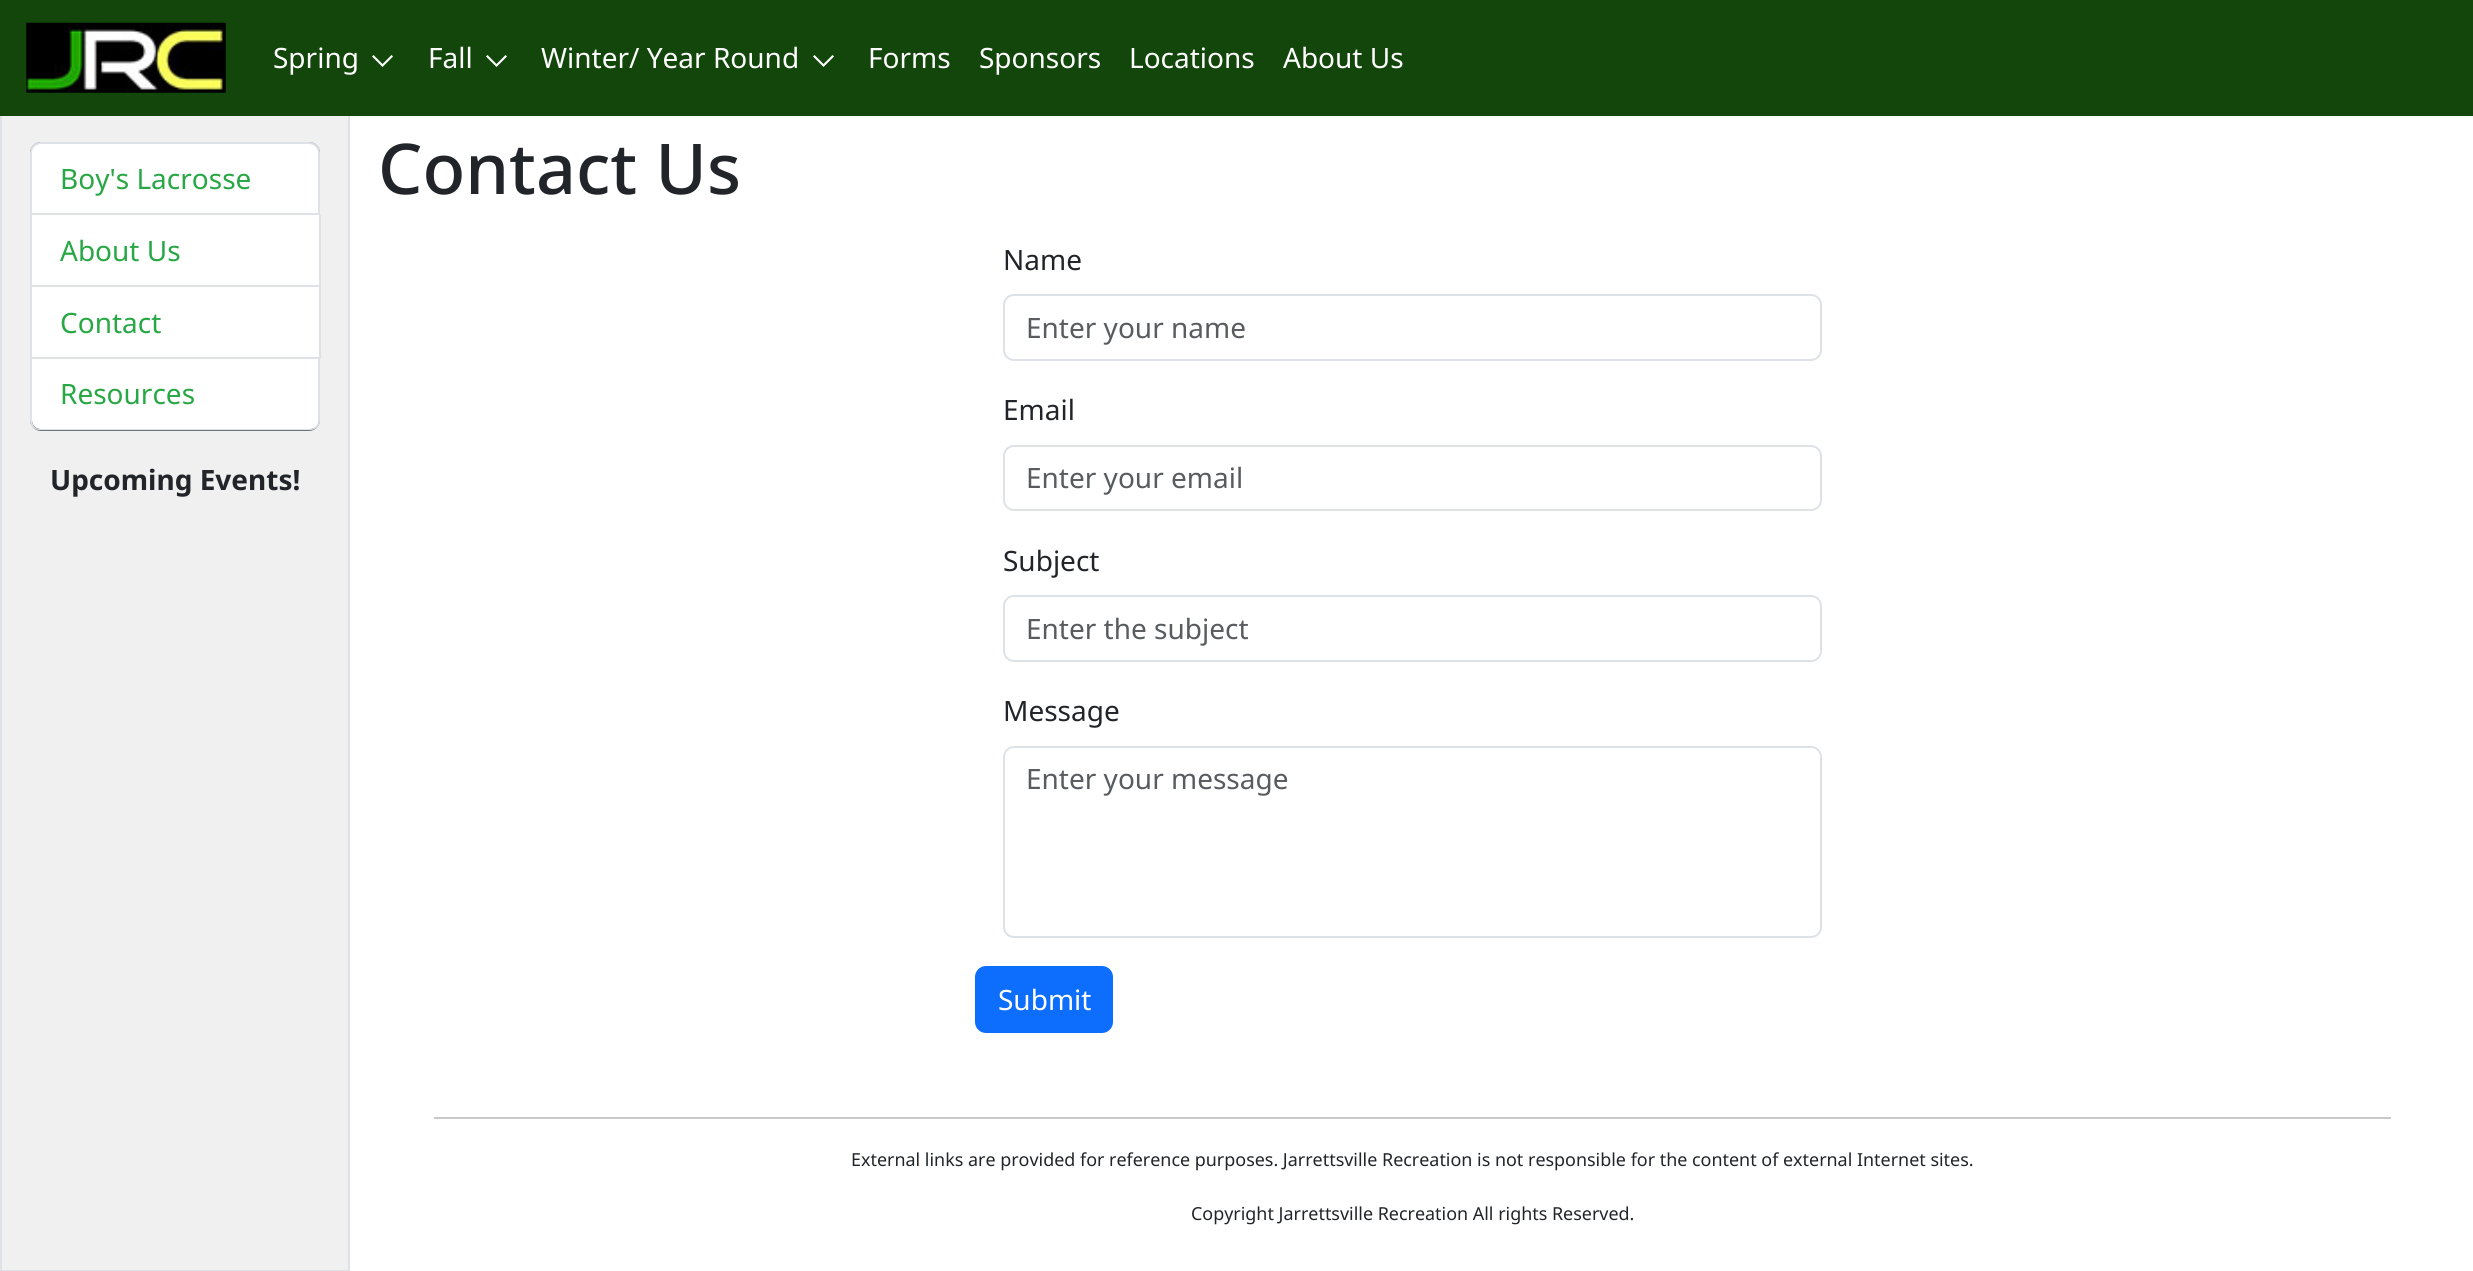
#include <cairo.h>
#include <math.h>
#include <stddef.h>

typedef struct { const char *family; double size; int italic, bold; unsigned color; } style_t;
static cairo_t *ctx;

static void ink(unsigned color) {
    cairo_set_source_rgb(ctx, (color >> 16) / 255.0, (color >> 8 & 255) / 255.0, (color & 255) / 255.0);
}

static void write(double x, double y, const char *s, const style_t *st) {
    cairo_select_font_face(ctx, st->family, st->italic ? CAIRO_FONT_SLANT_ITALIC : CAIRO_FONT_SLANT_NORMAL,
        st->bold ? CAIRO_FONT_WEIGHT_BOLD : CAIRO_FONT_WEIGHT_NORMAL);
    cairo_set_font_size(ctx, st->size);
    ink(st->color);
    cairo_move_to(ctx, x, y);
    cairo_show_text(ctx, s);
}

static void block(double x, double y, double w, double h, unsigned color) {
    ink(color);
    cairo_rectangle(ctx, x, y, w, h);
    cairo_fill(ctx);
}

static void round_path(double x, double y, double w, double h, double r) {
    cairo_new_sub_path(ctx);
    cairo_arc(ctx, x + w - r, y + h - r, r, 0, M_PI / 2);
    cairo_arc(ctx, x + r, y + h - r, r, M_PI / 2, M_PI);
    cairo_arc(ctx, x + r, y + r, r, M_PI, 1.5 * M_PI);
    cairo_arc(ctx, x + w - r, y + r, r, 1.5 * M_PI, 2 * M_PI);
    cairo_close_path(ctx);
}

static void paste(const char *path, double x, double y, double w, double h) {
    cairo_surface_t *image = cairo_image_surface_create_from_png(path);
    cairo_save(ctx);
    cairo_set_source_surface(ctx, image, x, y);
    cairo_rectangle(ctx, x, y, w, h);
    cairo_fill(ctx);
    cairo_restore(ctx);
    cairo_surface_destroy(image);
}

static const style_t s1 = {"Noto Sans", 28, 0, 0, 0xffffff};
static const style_t s2 = {"Noto Sans", 28, 0, 0, 0x28a745};
static const style_t s3 = {"Noto Sans", 28, 0, 1, 0x212529};
static const style_t s4 = {"Noto Sans Medium", 70, 0, 0, 0x212529};
static const style_t s5 = {"Noto Sans", 28, 0, 0, 0x212529};
static const style_t s6 = {"Noto Sans", 28, 0, 0, 0x595c5f};
static const style_t s7 = {"Noto Sans", 17.92, 0, 0, 0x212529};

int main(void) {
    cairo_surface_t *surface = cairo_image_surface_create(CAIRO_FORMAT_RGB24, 2473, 1271);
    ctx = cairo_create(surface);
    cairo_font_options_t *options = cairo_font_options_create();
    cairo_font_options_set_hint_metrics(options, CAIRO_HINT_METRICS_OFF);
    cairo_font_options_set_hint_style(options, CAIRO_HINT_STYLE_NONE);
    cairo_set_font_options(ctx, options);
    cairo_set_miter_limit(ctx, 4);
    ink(0xffffff);
    cairo_paint(ctx);
    block(2, 116, 346, 1154, 0xf0f0f0);
    cairo_rectangle(ctx, 1, 113, 348, 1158);
    ink(0xdee2e6);
    cairo_stroke(ctx);
    block(0, 0, 2473, 116, 0x12460b);
    paste("pic1.png", 26, 22, 200, 71);
    write(273, 68, "Spring", &s1);
    cairo_new_path(ctx);
    cairo_move_to(ctx, 382.5, 67);
    cairo_line_to(ctx, 372, 56.5);
    cairo_line_to(ctx, 373.5, 55);
    cairo_line_to(ctx, 382.5, 64);
    cairo_line_to(ctx, 391.5, 55);
    cairo_line_to(ctx, 393, 56.5);
    cairo_close_path(ctx);
    cairo_fill(ctx);
    write(428, 68, "Fall", &s1);
    cairo_new_path(ctx);
    cairo_move_to(ctx, 496.5, 67);
    cairo_line_to(ctx, 486, 56.5);
    cairo_line_to(ctx, 487.5, 55);
    cairo_line_to(ctx, 496.5, 64);
    cairo_line_to(ctx, 505.5, 55);
    cairo_line_to(ctx, 507, 56.5);
    cairo_close_path(ctx);
    cairo_fill(ctx);
    write(541, 68, "Winter/ Year Round", &s1);
    cairo_new_path(ctx);
    cairo_move_to(ctx, 823.5, 67);
    cairo_line_to(ctx, 813, 56.5);
    cairo_line_to(ctx, 814.5, 55);
    cairo_line_to(ctx, 823.5, 64);
    cairo_line_to(ctx, 832.5, 55);
    cairo_line_to(ctx, 834, 56.5);
    cairo_close_path(ctx);
    cairo_fill(ctx);
    write(868, 68, "Forms", &s1);
    write(979, 68, "Sponsors", &s1);
    write(1129, 68, "Locations", &s1);
    write(1283, 68, "About Us", &s1);
    ink(0x6c757d);
    round_path(30, 142, 290, 289, 11);
    cairo_fill(ctx);
    ink(0xffffff);
    cairo_new_path(ctx);
    cairo_move_to(ctx, 41, 143);
    cairo_line_to(ctx, 309, 143);
    cairo_curve_to(ctx, 314.5, 143, 319, 147.5, 319, 153);
    cairo_line_to(ctx, 319, 214);
    cairo_line_to(ctx, 31, 214);
    cairo_line_to(ctx, 31, 153);
    cairo_curve_to(ctx, 31, 147.5, 35.5, 143, 41, 143);
    cairo_close_path(ctx);
    cairo_fill_preserve(ctx);
    ink(0xdee2e6);
    cairo_stroke(ctx);
    write(60, 189, "Boy's Lacrosse", &s2);
    block(32, 215, 287, 70, 0xffffff);
    block(319, 215, 2, 144, 0xdee2e6);
    block(30, 285, 290, 2, 0xdee2e6);
    block(30, 215, 2, 72, 0xdee2e6);
    write(60, 261, "About Us", &s2);
    block(32, 287, 287, 70, 0xffffff);
    block(30, 357, 290, 2, 0xdee2e6);
    block(30, 287, 2, 72, 0xdee2e6);
    write(60, 333, "Contact", &s2);
    ink(0xffffff);
    cairo_new_path(ctx);
    cairo_move_to(ctx, 32, 359);
    cairo_line_to(ctx, 319, 359);
    cairo_line_to(ctx, 319, 420);
    cairo_curve_to(ctx, 319, 425, 315, 429, 310, 429);
    cairo_line_to(ctx, 41, 429);
    cairo_curve_to(ctx, 36, 429, 32, 425, 32, 420);
    cairo_close_path(ctx);
    cairo_fill(ctx);
    ink(0xdee2e6);
    cairo_set_fill_rule(ctx, CAIRO_FILL_RULE_EVEN_ODD);
    cairo_new_path(ctx);
    cairo_move_to(ctx, 30, 359);
    cairo_line_to(ctx, 320, 359);
    cairo_line_to(ctx, 320, 420);
    cairo_curve_to(ctx, 320, 426, 316, 430, 310, 430);
    cairo_line_to(ctx, 40, 430);
    cairo_curve_to(ctx, 34, 430, 30, 426, 30, 420);
    cairo_close_path(ctx);
    cairo_move_to(ctx, 32, 359);
    cairo_line_to(ctx, 318, 359);
    cairo_line_to(ctx, 318, 420);
    cairo_curve_to(ctx, 318, 425, 315, 429, 310, 429);
    cairo_line_to(ctx, 40, 429);
    cairo_curve_to(ctx, 35, 429, 32, 425, 32, 420);
    cairo_close_path(ctx);
    cairo_fill(ctx);
    write(60, 404, "Resources", &s2);
    write(50, 490, "Upcoming Events!", &s3);
    write(378, 194, "Contact Us", &s4);
    write(1003, 270, "Name", &s5);
    round_path(1004, 295, 817, 65, 10);
    ink(0xdee2e6);
    cairo_stroke(ctx);
    write(1026, 338, "Enter your name", &s6);
    write(1003, 420, "Email", &s5);
    round_path(1004, 446, 817, 64, 10);
    ink(0xdee2e6);
    cairo_stroke(ctx);
    write(1026, 488, "Enter your email", &s6);
    write(1003, 571, "Subject", &s5);
    round_path(1004, 596, 817, 65, 10);
    ink(0xdee2e6);
    cairo_stroke(ctx);
    write(1026, 639, "Enter the subject", &s6);
    write(1003, 721, "Message", &s5);
    round_path(1004, 747, 817, 190, 10);
    ink(0xdee2e6);
    cairo_stroke(ctx);
    write(1026, 789, "Enter your message", &s6);
    ink(0x0d6efd);
    round_path(976, 967, 136, 65, 10);
    cairo_fill_preserve(ctx);
    cairo_stroke(ctx);
    write(998, 1010, "Submit", &s1);
    block(434, 1117, 1957, 2, 0xc8c9ca);
    write(851, 1166, "External links are provided for reference purposes. Jarrettsville Recreation is not responsible for the content of external Internet sites.", &s7);
    write(1191, 1220, "Copyright Jarrettsville Recreation All rights Reserved.", &s7);
    cairo_surface_write_to_png(surface, "screenshot.png");
    cairo_font_options_destroy(options);
    cairo_destroy(ctx);
    cairo_surface_destroy(surface);
    return 0;
}
